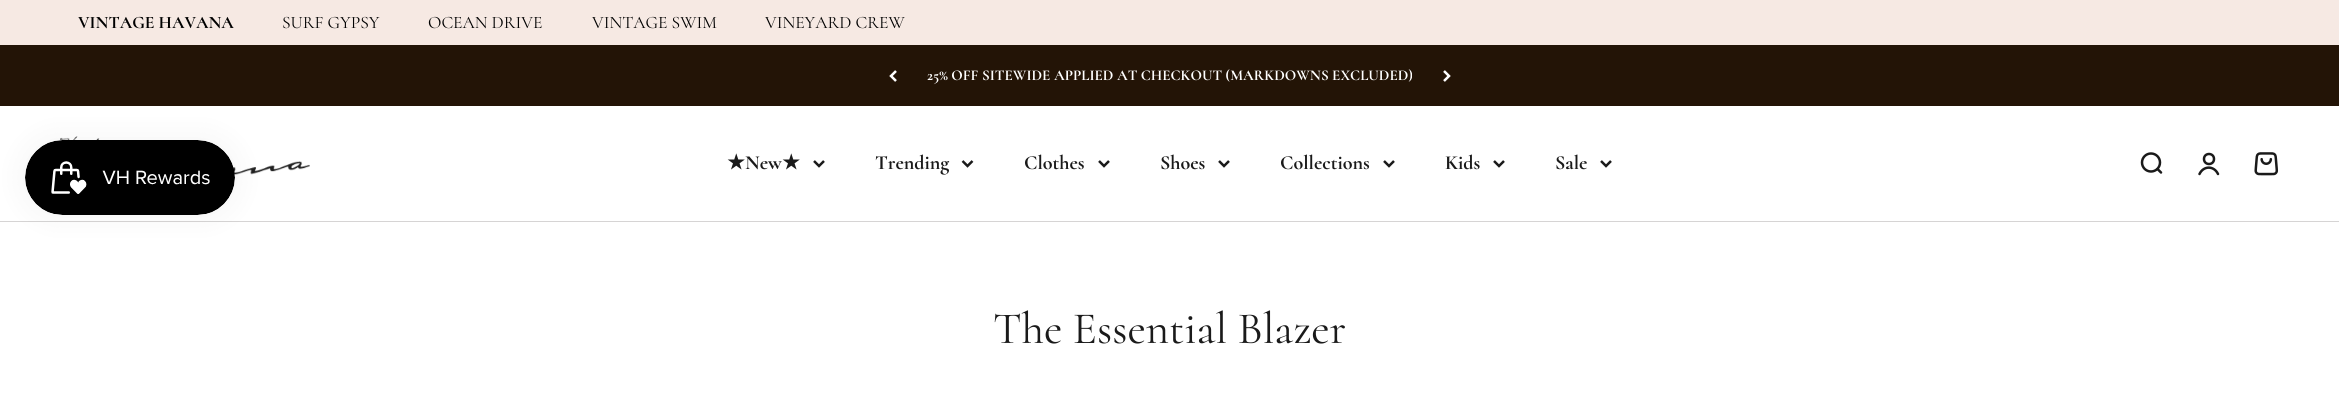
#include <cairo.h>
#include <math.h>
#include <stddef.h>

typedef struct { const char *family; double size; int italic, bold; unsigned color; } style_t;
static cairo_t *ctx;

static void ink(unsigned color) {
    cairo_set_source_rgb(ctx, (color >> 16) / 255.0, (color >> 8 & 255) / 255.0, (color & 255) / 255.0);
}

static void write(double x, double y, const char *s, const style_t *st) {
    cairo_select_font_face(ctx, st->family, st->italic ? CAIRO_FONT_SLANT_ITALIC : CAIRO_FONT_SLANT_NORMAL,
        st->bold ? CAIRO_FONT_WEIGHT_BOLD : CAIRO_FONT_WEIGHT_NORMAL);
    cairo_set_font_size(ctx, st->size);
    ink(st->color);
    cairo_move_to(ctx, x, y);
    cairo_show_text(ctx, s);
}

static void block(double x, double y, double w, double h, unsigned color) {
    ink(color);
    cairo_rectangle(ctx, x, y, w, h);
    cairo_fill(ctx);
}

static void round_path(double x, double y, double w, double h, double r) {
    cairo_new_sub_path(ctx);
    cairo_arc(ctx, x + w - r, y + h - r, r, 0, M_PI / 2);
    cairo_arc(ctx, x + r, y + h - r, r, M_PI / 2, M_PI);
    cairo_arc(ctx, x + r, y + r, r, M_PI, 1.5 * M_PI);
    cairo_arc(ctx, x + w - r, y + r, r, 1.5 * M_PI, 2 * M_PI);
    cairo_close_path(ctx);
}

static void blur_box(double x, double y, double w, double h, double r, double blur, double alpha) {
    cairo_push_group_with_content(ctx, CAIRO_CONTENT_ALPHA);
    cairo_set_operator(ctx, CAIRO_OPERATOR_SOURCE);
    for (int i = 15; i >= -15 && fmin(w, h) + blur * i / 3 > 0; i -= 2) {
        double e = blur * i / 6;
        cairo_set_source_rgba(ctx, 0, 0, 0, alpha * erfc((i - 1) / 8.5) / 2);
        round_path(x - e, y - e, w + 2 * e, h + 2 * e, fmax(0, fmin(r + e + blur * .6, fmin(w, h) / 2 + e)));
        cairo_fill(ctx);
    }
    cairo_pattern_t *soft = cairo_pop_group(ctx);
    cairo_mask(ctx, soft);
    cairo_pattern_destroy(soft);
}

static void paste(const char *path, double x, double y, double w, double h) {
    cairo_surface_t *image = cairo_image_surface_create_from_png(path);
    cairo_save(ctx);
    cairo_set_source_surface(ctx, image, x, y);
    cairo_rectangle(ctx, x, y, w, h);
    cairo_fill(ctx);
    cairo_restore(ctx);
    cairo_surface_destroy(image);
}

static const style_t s1 = {"Cormorant", 17.5, 0, 1, 0x000000};
static const style_t s2 = {"Cormorant", 17.5, 0, 0, 0x000000};
static const style_t s3 = {"Cormorant", 15, 0, 1, 0xffffff};
static const style_t s4 = {"DejaVu Sans", 20, 0, 1, 0x1a1a1a};
static const style_t s5 = {"Cormorant", 20, 0, 1, 0x1a1a1a};
static const style_t s6 = {"Cormorant", 45, 0, 0, 0x1a1a1a};

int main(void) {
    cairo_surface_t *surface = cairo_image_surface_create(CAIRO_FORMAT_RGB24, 2339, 402);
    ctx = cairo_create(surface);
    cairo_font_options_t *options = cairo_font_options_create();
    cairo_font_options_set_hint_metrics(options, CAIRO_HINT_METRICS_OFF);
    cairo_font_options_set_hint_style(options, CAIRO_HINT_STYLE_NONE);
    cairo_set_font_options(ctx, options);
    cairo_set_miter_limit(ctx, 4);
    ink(0xffffff);
    cairo_paint(ctx);
    block(0, 0, 2339, 45, 0xf6e9e3);
    write(78, 28, "VINTAGE HAVANA", &s1);
    write(282, 28, "SURF GYPSY", &s2);
    write(428, 28, "OCEAN DRIVE", &s2);
    write(592, 28, "VINTAGE SWIM", &s2);
    write(765, 28, "VINEYARD CREW", &s2);
    block(0, 45, 2339, 61, 0x231406);
    cairo_new_path(ctx);
    cairo_move_to(ctx, 896, 71);
    cairo_line_to(ctx, 891, 76);
    cairo_line_to(ctx, 896, 81);
    ink(0xffffff);
    cairo_set_line_width(ctx, 2.5);
    cairo_stroke(ctx);
    write(927, 80, "25% OFF SITEWIDE APPLIED AT CHECKOUT (MARKDOWNS EXCLUDED)", &s3);
    cairo_new_path(ctx);
    cairo_move_to(ctx, 1444, 81);
    cairo_line_to(ctx, 1449, 76);
    cairo_line_to(ctx, 1444, 71);
    cairo_stroke(ctx);
    block(0, 221, 2339, 1, 0xd6d4d4);
    paste("pic2.png", 60, 136, 250, 40);
    ink(0x000000);
    blur_box(25, 140, 210, 75, 37.5, 15.5, 0.05);
    paste("pic1.png", 25, 140, 210, 75);
    write(727, 169, "★", &s4);
    write(745, 169, "New", &s5);
    write(782, 169, "★", &s4);
    cairo_new_path(ctx);
    cairo_move_to(ctx, 814, 161);
    cairo_line_to(ctx, 819, 166);
    cairo_line_to(ctx, 824, 161);
    cairo_stroke(ctx);
    write(875, 169, "Trending", &s5);
    cairo_new_path(ctx);
    cairo_move_to(ctx, 962.5, 161);
    cairo_line_to(ctx, 967.5, 166);
    cairo_line_to(ctx, 972.5, 161);
    cairo_stroke(ctx);
    write(1024, 169, "Clothes", &s5);
    cairo_new_path(ctx);
    cairo_move_to(ctx, 1099, 161);
    cairo_line_to(ctx, 1104, 166);
    cairo_line_to(ctx, 1109, 161);
    cairo_stroke(ctx);
    write(1160, 169, "Shoes", &s5);
    cairo_new_path(ctx);
    cairo_move_to(ctx, 1219, 161);
    cairo_line_to(ctx, 1224, 166);
    cairo_line_to(ctx, 1229, 161);
    cairo_stroke(ctx);
    write(1280, 169, "Collections", &s5);
    cairo_new_path(ctx);
    cairo_move_to(ctx, 1384, 161);
    cairo_line_to(ctx, 1389, 166);
    cairo_line_to(ctx, 1394, 161);
    cairo_stroke(ctx);
    write(1445, 169, "Kids", &s5);
    cairo_new_path(ctx);
    cairo_move_to(ctx, 1494, 161);
    cairo_line_to(ctx, 1499, 166);
    cairo_line_to(ctx, 1504, 161);
    cairo_stroke(ctx);
    write(1555, 169, "Sale", &s5);
    cairo_new_path(ctx);
    cairo_move_to(ctx, 1601, 161);
    cairo_line_to(ctx, 1606, 166);
    cairo_line_to(ctx, 1611, 161);
    cairo_stroke(ctx);
    cairo_arc(ctx, 2151, 162.5, 9, 0, 2 * M_PI);
    cairo_stroke(ctx);
    cairo_new_path(ctx);
    cairo_move_to(ctx, 2157.5, 169);
    cairo_line_to(ctx, 2161, 172.5);
    cairo_set_line_cap(ctx, CAIRO_LINE_CAP_ROUND);
    cairo_set_line_join(ctx, CAIRO_LINE_JOIN_ROUND);
    cairo_stroke(ctx);
    cairo_arc(ctx, 2209, 159, 5, 0, 2 * M_PI);
    cairo_set_line_cap(ctx, CAIRO_LINE_CAP_BUTT);
    cairo_set_line_join(ctx, CAIRO_LINE_JOIN_MITER);
    cairo_stroke(ctx);
    cairo_new_path(ctx);
    cairo_move_to(ctx, 2199.5, 174);
    cairo_curve_to(ctx, 2203.5, 165.5, 2214, 165.5, 2218, 174);
    cairo_set_line_cap(ctx, CAIRO_LINE_CAP_ROUND);
    cairo_stroke(ctx);
    paste("pic3.png", 2254, 152, 25, 24);
    write(993, 343, "The Essential Blazer", &s6);
    cairo_surface_write_to_png(surface, "screenshot.png");
    cairo_font_options_destroy(options);
    cairo_destroy(ctx);
    cairo_surface_destroy(surface);
    return 0;
}
